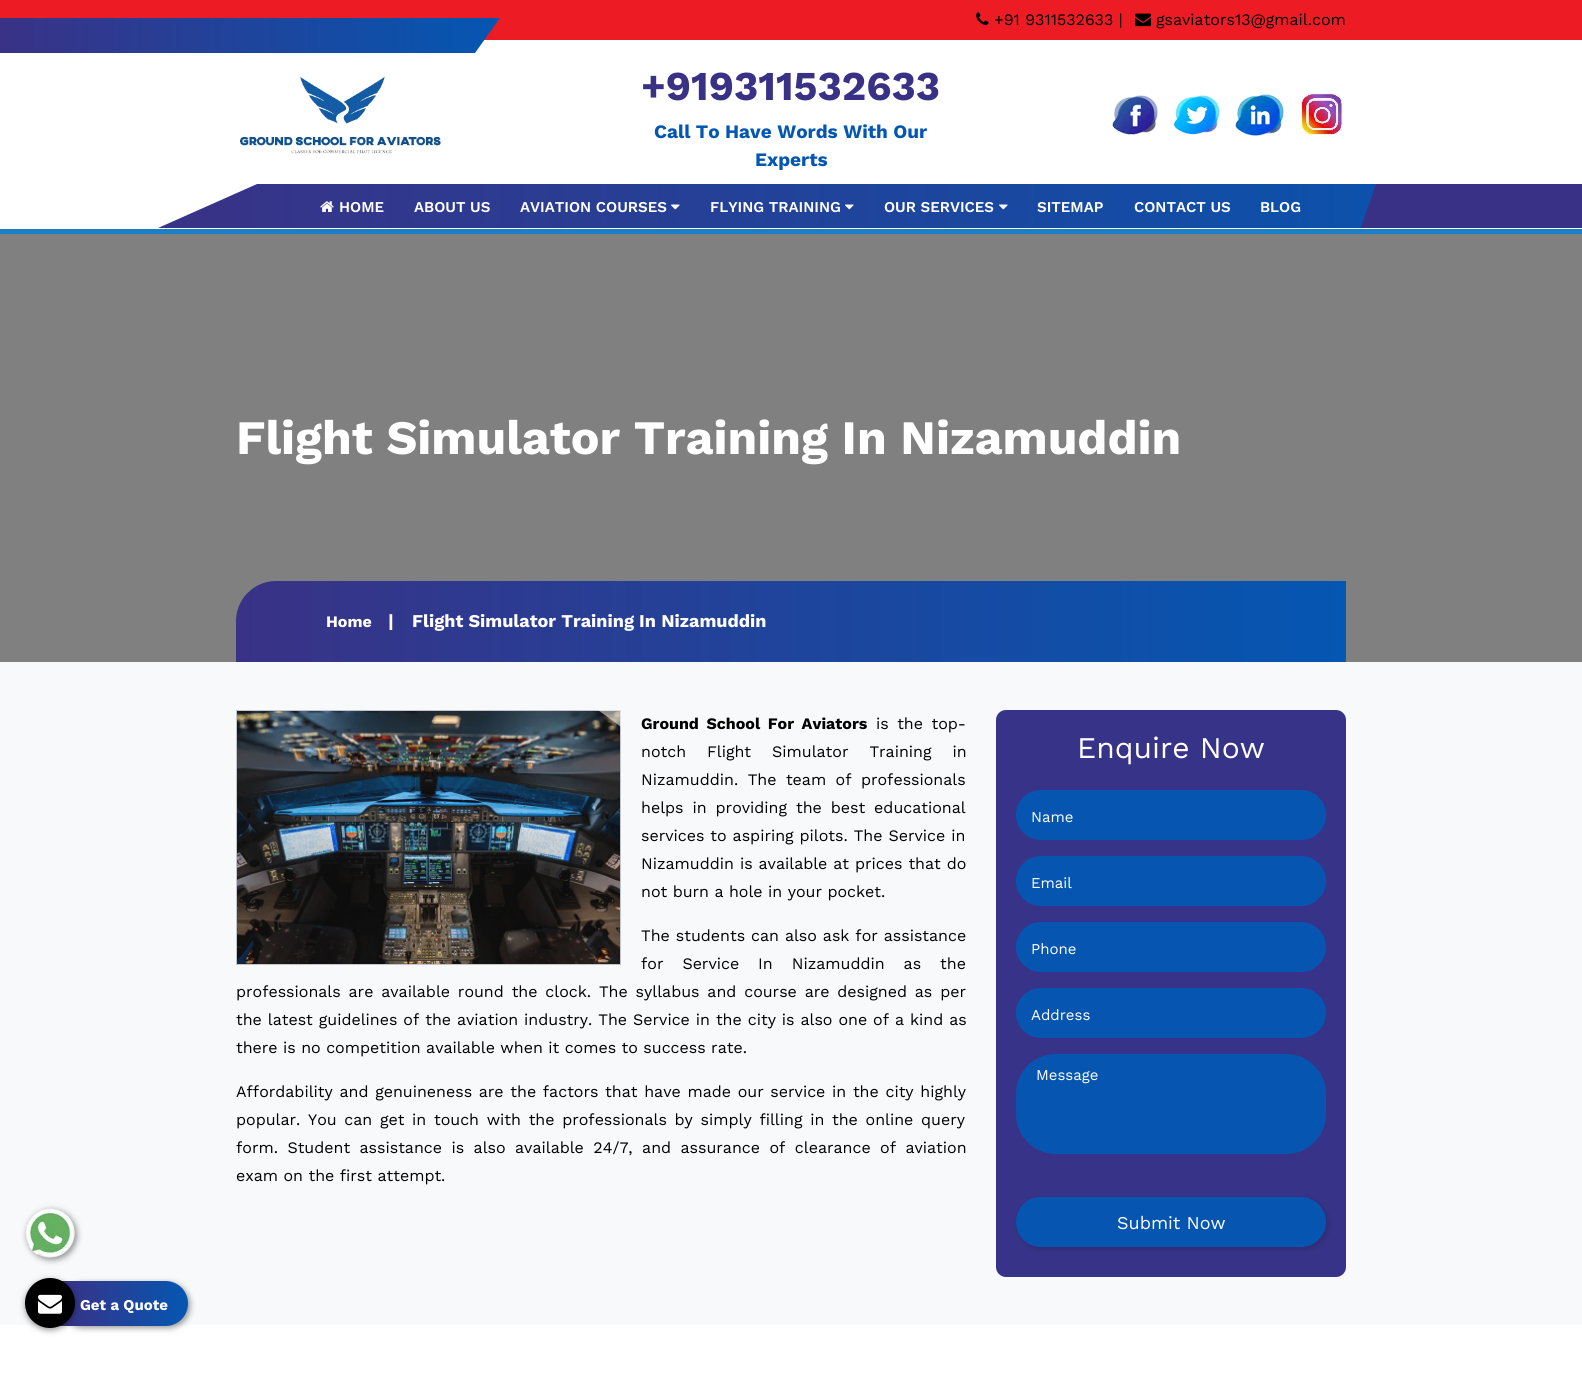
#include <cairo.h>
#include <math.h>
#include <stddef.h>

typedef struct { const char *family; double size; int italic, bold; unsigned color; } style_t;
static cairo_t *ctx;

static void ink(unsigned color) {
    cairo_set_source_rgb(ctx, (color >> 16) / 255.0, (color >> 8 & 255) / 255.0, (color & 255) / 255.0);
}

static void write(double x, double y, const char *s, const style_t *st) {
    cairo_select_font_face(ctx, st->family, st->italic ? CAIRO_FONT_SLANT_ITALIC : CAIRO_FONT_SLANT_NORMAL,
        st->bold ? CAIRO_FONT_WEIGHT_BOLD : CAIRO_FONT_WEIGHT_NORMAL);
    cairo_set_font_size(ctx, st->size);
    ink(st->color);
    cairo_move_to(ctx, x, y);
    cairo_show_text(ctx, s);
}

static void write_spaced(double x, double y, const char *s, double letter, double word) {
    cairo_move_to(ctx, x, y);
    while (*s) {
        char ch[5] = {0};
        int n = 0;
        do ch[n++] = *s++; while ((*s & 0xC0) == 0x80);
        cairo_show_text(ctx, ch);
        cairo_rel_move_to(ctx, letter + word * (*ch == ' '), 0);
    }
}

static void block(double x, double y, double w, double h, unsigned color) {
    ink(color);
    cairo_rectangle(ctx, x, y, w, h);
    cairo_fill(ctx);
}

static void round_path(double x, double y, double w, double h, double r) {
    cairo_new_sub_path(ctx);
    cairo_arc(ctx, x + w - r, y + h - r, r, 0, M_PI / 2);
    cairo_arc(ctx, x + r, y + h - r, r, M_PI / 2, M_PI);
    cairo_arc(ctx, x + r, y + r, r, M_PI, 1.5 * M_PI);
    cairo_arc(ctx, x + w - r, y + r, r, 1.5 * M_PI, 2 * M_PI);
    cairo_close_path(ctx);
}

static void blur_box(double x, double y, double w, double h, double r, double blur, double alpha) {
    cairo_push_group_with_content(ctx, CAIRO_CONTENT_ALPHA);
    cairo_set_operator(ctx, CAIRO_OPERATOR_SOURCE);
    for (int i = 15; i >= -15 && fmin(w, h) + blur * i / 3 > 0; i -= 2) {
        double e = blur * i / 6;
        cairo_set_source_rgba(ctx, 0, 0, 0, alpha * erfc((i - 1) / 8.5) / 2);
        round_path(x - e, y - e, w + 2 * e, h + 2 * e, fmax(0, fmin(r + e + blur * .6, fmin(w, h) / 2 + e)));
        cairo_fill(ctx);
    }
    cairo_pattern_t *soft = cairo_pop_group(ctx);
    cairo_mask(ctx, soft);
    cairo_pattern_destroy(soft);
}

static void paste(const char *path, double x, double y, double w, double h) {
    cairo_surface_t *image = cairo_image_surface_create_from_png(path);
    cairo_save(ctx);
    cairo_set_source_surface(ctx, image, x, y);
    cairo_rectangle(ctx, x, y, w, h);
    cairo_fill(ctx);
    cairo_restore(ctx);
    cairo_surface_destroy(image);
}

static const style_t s1 = {"Work Sans", 16, 0, 0, 0x000000};
static const style_t s2 = {"Work Sans", 41, 0, 1, 0x393185};
static const style_t s3 = {"Work Sans", 19, 0, 1, 0x0356b2};
static const style_t s4 = {"Work Sans SemiBold", 15, 0, 0, 0xffffff};
static const style_t s5 = {"Work Sans", 48, 0, 1, 0xffffff};
static const style_t s6 = {"Work Sans", 16, 0, 1, 0xffffff};
static const style_t s7 = {"Work Sans", 18, 0, 1, 0xffffff};
static const style_t s8 = {"Work Sans", 30, 0, 0, 0xffffff};
static const style_t s9 = {"Work Sans", 15, 0, 0, 0xffffff};
static const style_t s10 = {"Work Sans", 18, 0, 0, 0xffffff};
static const style_t s11 = {"Work Sans", 15, 0, 1, 0xffffff};

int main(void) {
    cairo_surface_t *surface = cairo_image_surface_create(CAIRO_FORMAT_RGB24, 1582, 1373);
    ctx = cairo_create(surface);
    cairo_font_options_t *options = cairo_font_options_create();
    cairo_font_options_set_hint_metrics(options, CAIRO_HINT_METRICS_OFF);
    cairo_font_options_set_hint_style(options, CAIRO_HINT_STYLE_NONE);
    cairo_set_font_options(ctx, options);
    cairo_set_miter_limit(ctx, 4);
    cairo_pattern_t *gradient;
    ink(0xffffff);
    cairo_paint(ctx);
    block(0, 0, 1582, 40, 0xed1c24);
    gradient = cairo_pattern_create_linear(0, 36, 500, 35);
    cairo_pattern_add_color_stop_rgba(gradient, 0, 0.224, 0.196, 0.525, 1);
    cairo_pattern_add_color_stop_rgba(gradient, 1, 0.016, 0.341, 0.698, 1);
    cairo_set_source(ctx, gradient);
    cairo_pattern_destroy(gradient);
    cairo_new_path(ctx);
    cairo_move_to(ctx, 0, 18);
    cairo_line_to(ctx, 0, 53);
    cairo_line_to(ctx, 475, 53);
    cairo_line_to(ctx, 500, 18);
    cairo_close_path(ctx);
    cairo_fill(ctx);
    paste("pic1.png", 976, 12, 13, 13);
    write(994, 25, "+91 9311532633 |", &s1);
    paste("pic2.png", 1135, 13, 16, 14);
    write(1156, 25, "gsaviators13@gmail.com", &s1);
    paste("pic3.png", 240, 76, 201, 78);
    write(641, 100, "+919311532633", &s2);
    write(654, 138, "Call To Have Words With Our", &s3);
    write(755, 166, "Experts", &s3);
    paste("pic4.png", 1112, 95, 46, 40);
    paste("pic5.png", 1174, 95, 46, 40);
    paste("pic6.png", 1235, 94, 49, 42);
    paste("pic7.png", 1296, 90, 48, 48);
    block(0, 229, 1582, 5, 0x1a7fc5);
    gradient = cairo_pattern_create_linear(158, 207, 1582, 206);
    cairo_pattern_add_color_stop_rgba(gradient, 0, 0.224, 0.196, 0.525, 1);
    cairo_pattern_add_color_stop_rgba(gradient, 1, 0.016, 0.341, 0.698, 1);
    cairo_set_source(ctx, gradient);
    cairo_pattern_destroy(gradient);
    cairo_new_path(ctx);
    cairo_move_to(ctx, 1582, 228);
    cairo_line_to(ctx, 1582, 184);
    cairo_line_to(ctx, 257, 184);
    cairo_line_to(ctx, 158, 228);
    cairo_close_path(ctx);
    cairo_fill(ctx);
    paste("pic8.png", 320, 201, 14, 11);
    write(339, 212, "HOME", &s4);
    write(414, 212, "ABOUT US", &s4);
    write(520, 212, "AVIATION COURSES", &s4);
    paste("pic9.png", 671, 204, 9, 6);
    write(710, 212, "FLYING TRAINING", &s4);
    paste("pic10.png", 845, 204, 9, 6);
    write(884, 212, "OUR SERVICES", &s4);
    paste("pic11.png", 999, 204, 9, 6);
    write(1037, 212, "SITEMAP", &s4);
    write(1134, 212, "CONTACT US", &s4);
    write(1260, 212, "BLOG", &s4);
    ink(0x393185);
    cairo_new_path(ctx);
    cairo_move_to(ctx, 1361, 227);
    cairo_line_to(ctx, 1376, 184);
    cairo_line_to(ctx, 1582, 184);
    cairo_line_to(ctx, 1582, 228);
    cairo_line_to(ctx, 1361, 228);
    cairo_close_path(ctx);
    cairo_fill(ctx);
    block(0, 234, 1582, 428, 0x808080);
    write(236, 454, "Flight Simulator Training In Nizamuddin", &s5);
    gradient = cairo_pattern_create_linear(236, 622, 1346, 622);
    cairo_pattern_add_color_stop_rgba(gradient, 0, 0.224, 0.196, 0.525, 1);
    cairo_pattern_add_color_stop_rgba(gradient, 1, 0.016, 0.341, 0.698, 1);
    cairo_set_source(ctx, gradient);
    cairo_pattern_destroy(gradient);
    cairo_new_path(ctx);
    cairo_move_to(ctx, 276, 581);
    cairo_line_to(ctx, 1346, 581);
    cairo_line_to(ctx, 1346, 662);
    cairo_line_to(ctx, 236, 662);
    cairo_line_to(ctx, 236, 621);
    cairo_curve_to(ctx, 236, 599, 254, 581, 276, 581);
    cairo_close_path(ctx);
    cairo_fill(ctx);
    write(326, 627, "Home", &s6);
    write(388, 627, "|", &s7);
    write(412, 627, "Flight Simulator Training In Nizamuddin", &s7);
    block(0, 662, 1582, 663, 0xf8f9fa);
    ink(0x000000);
    blur_box(27, 1210, 50, 50, 25, 3, 0.4);
    paste("pic12.png", 25, 1208, 50, 50);
    cairo_rectangle(ctx, 236.5, 710.5, 384, 254);
    ink(0xc3c5ca);
    cairo_set_line_width(ctx, 1);
    cairo_stroke(ctx);
    paste("pic13.png", 237, 711, 383, 253);
    cairo_save(ctx);
    cairo_rectangle(ctx, 236, 710, 385, 255);
    cairo_clip(ctx);
    cairo_set_source_rgba(ctx, 1, 1, 1, 0.5);
    cairo_new_path(ctx);
    cairo_move_to(ctx, 684, 268);
    cairo_line_to(ctx, 1202, 649);
    cairo_line_to(ctx, 859, 902);
    cairo_line_to(ctx, 341, 521);
    cairo_close_path(ctx);
    cairo_fill(ctx);
    cairo_restore(ctx);
    cairo_set_font_size(ctx, 16);
    ink(0x000000);
    write_spaced(641, 729, "Ground School For Aviators", 0, 3);
    cairo_select_font_face(ctx, "Work Sans", CAIRO_FONT_SLANT_NORMAL, CAIRO_FONT_WEIGHT_NORMAL);
    write_spaced(876, 729, "is the top-", 0, 3);
    write_spaced(641, 757, "notch Flight Simulator Training in", 0, 15.5);
    write_spaced(641, 785, "Nizamuddin. The team of professionals", 0, 4);
    write_spaced(641, 813, "helps in providing the best educational", 0, 3.5);
    write_spaced(641, 841, "services to aspiring pilots. The Service in", 0, 0.5);
    write_spaced(641, 869, "Nizamuddin is available at prices that do", 0, 0.5);
    write(641, 897, "not burn a hole in your pocket.", &s1);
    write_spaced(641, 941, "The students can also ask for assistance", 0, 0.5);
    write_spaced(641, 969, "for Service In Nizamuddin as the", 0, 13.5);
    write_spaced(236, 997, "professionals are available round the clock. The syllabus and course are designed as per", 0, 2.4);
    write_spaced(236, 1025, "the latest guidelines of the aviation industry. The Service in the city is also one of a kind as", 0, 0.5);
    write(236, 1053, "there is no competition available when it comes to success rate.", &s1);
    write_spaced(236, 1097, "Affordability and genuineness are the factors that have made our service in the city highly", 0, 1.25);
    write_spaced(236, 1125, "popular. You can get in touch with the professionals by simply filling in the online query", 0, 2.25);
    write_spaced(236, 1153, "form. Student assistance is also available 24/7, and assurance of clearance of aviation", 0, 4);
    write(236, 1181, "exam on the first attempt.", &s1);
    ink(0x373388);
    round_path(996, 710, 350, 567, 10);
    cairo_fill(ctx);
    write(1077, 758, "Enquire Now", &s8);
    ink(0x0656b1);
    round_path(1016, 790, 310, 50, 25);
    cairo_fill(ctx);
    write(1031, 822, "Name", &s9);
    ink(0x0656b1);
    round_path(1016, 856, 310, 50, 25);
    cairo_fill(ctx);
    write(1031, 888, "Email", &s9);
    ink(0x0656b1);
    round_path(1016, 922, 310, 50, 25);
    cairo_fill(ctx);
    write(1031, 954, "Phone", &s9);
    ink(0x0656b1);
    round_path(1016, 988, 310, 50, 25);
    cairo_fill(ctx);
    write(1031, 1020, "Address", &s9);
    ink(0x0656b1);
    round_path(1016, 1054, 310, 100, 40);
    cairo_fill(ctx);
    write(1036, 1080, "Message", &s9);
    ink(0x000000);
    blur_box(1018, 1199, 310, 50, 25, 3, 0.17);
    ink(0x0656b1);
    round_path(1016, 1197, 310, 50, 25);
    cairo_fill(ctx);
    write(1117, 1229, "Submit Now", &s10);
    ink(0x000000);
    blur_box(62, 1283, 128, 45, 22.5, 3, 0.4);
    gradient = cairo_pattern_create_linear(60, 1304, 188, 1304);
    cairo_pattern_add_color_stop_rgba(gradient, 0, 0.224, 0.196, 0.525, 1);
    cairo_pattern_add_color_stop_rgba(gradient, 1, 0.016, 0.341, 0.698, 1);
    cairo_set_source(ctx, gradient);
    cairo_pattern_destroy(gradient);
    cairo_new_path(ctx);
    cairo_move_to(ctx, 60, 1281);
    cairo_line_to(ctx, 165.5, 1281);
    cairo_curve_to(ctx, 178, 1281, 188, 1291, 188, 1303.5);
    cairo_curve_to(ctx, 188, 1316, 178, 1326, 165.5, 1326);
    cairo_line_to(ctx, 60, 1326);
    cairo_close_path(ctx);
    cairo_fill(ctx);
    ink(0x000000);
    blur_box(25, 1280, 50, 50, 25, 3, 0.4);
    ink(0x000000);
    cairo_arc(ctx, 50, 1303, 25, 0, 2 * M_PI);
    cairo_fill(ctx);
    paste("pic14.png", 38, 1294, 24, 20);
    write(80, 1310, "Get a Quote", &s11);
    cairo_surface_write_to_png(surface, "screenshot.png");
    cairo_font_options_destroy(options);
    cairo_destroy(ctx);
    cairo_surface_destroy(surface);
    return 0;
}
